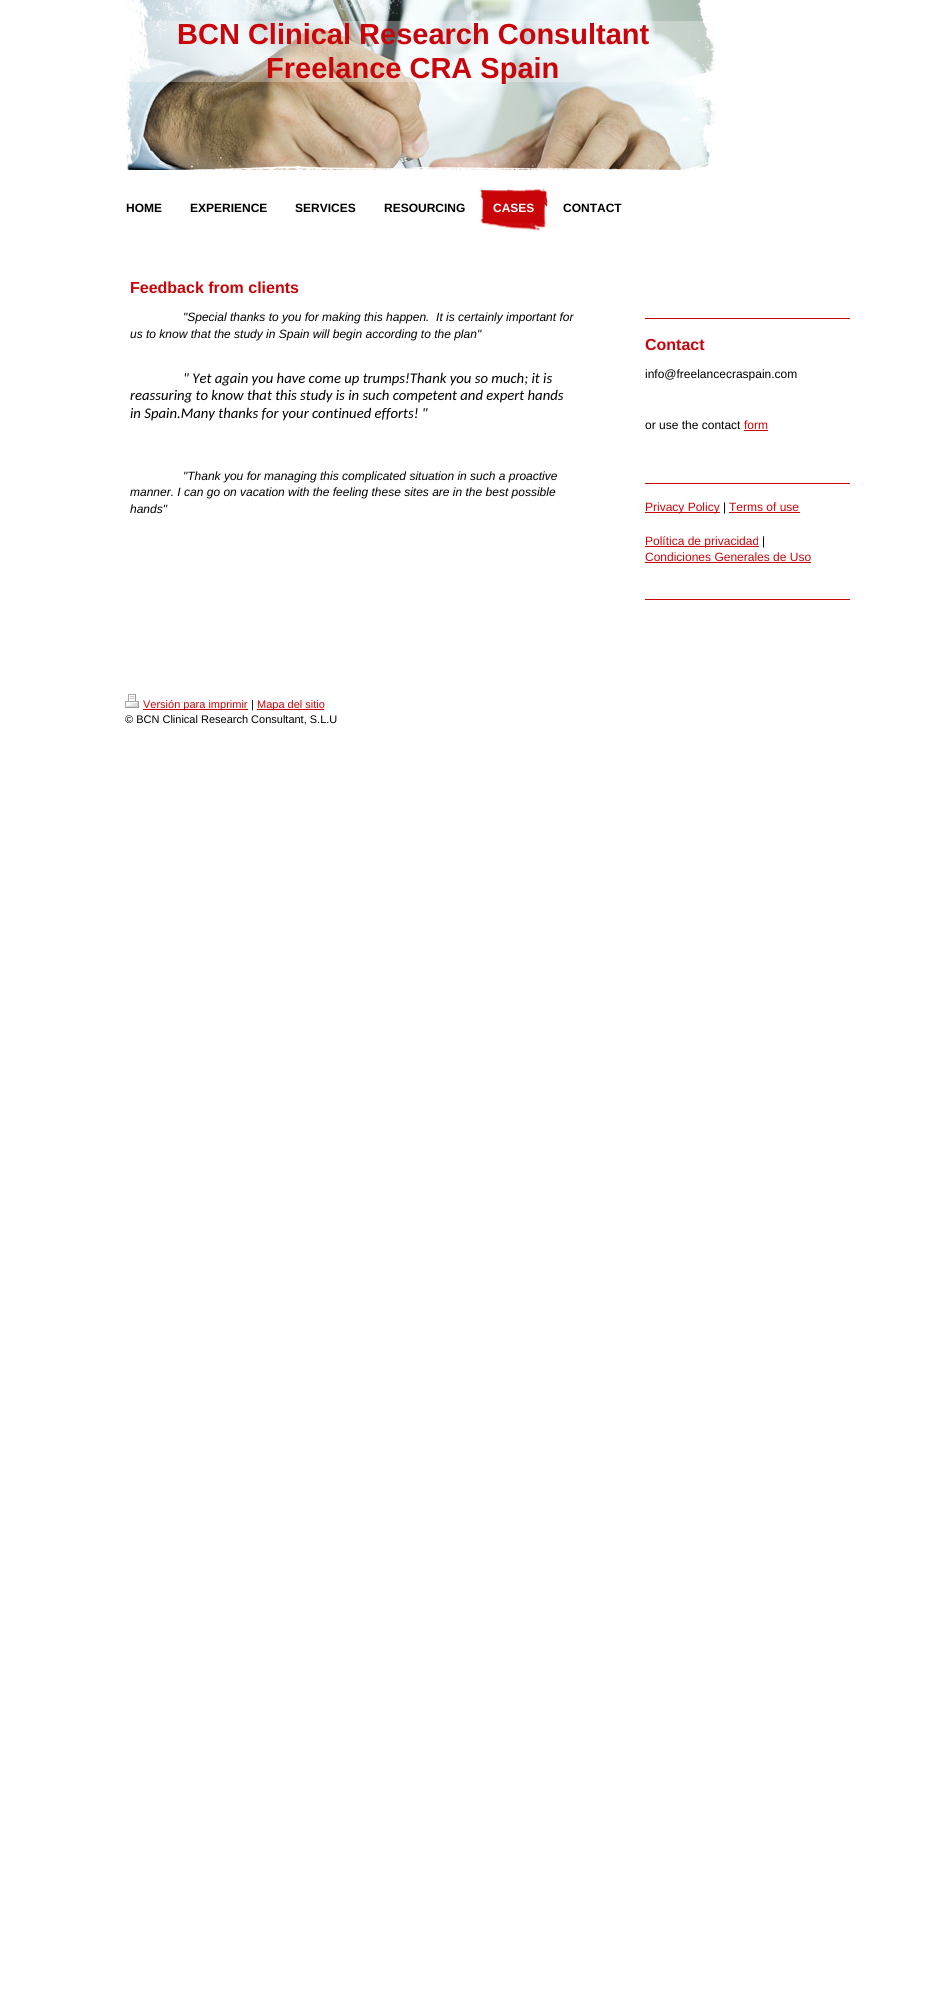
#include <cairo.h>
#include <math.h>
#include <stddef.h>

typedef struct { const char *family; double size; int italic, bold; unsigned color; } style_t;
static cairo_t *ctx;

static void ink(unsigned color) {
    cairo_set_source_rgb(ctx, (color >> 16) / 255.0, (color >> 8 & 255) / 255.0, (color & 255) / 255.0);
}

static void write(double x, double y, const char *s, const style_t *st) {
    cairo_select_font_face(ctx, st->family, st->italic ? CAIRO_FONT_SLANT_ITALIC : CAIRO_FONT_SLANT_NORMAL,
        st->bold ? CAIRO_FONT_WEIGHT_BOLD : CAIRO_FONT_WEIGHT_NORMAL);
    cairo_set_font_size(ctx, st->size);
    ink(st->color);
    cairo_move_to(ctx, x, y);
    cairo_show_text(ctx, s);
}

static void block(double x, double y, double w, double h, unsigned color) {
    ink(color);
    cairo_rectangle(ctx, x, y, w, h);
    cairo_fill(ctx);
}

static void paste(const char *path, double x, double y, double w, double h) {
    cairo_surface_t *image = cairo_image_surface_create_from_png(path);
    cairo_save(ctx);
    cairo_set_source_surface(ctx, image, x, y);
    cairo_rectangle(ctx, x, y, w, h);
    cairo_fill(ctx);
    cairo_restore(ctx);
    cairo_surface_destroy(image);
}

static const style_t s1 = {"Liberation Sans", 29, 0, 1, 0xc90509};
static const style_t s2 = {"Liberation Sans", 12, 0, 1, 0x000000};
static const style_t s3 = {"Liberation Sans", 12, 0, 1, 0xffffff};
static const style_t s4 = {"Liberation Sans", 16, 0, 1, 0xc90509};
static const style_t s5 = {"Liberation Sans", 12, 1, 0, 0x000000};
static const style_t s6 = {"Carlito", 14.7, 1, 0, 0x000000};
static const style_t s7 = {"Liberation Sans", 12, 0, 0, 0x000000};
static const style_t s8 = {"Liberation Sans", 12, 0, 0, 0xc90509};
static const style_t s9 = {"Liberation Sans", 11, 0, 0, 0xc90509};
static const style_t s10 = {"Liberation Sans", 11, 0, 0, 0x000000};

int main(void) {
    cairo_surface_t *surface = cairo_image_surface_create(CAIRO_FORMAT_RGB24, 937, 1991);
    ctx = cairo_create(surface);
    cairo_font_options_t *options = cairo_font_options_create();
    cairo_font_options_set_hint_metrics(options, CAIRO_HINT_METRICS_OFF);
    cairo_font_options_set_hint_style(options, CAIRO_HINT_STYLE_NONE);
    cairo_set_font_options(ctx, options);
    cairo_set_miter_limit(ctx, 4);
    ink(0xffffff);
    cairo_paint(ctx);
    paste("pic3.png", 125, 0, 590, 170);
    paste("pic1.png", 125, 0, 590, 27);
    paste("pic2.png", 125, 27, 47, 129);
    paste("pic4.png", 665, 27, 50, 129);
    cairo_set_source_rgba(ctx, 1, 1, 1, 0.3);
    cairo_rectangle(ctx, 127, 21, 588, 61);
    cairo_fill(ctx);
    write(177, 44, "BCN Clinical Research Consultant", &s1);
    write(266, 78, "Freelance CRA Spain", &s1);
    paste("pic5.png", 125, 156, 590, 14);
    write(126, 212, "HOME", &s2);
    write(190, 212, "EXPERIENCE", &s2);
    write(295, 212, "SERVICES", &s2);
    write(384, 212, "RESOURCING", &s2);
    block(479, 185, 70, 47, 0xc90509);
    paste("pic6.png", 479, 185, 70, 47);
    paste("pic7.png", 542, 186, 7, 45);
    write(493, 212, "CASES", &s3);
    write(563, 212, "CONTACT", &s2);
    write(130, 293, "Feedback from clients", &s4);
    write(183, 321, "\"Special thanks to you for making this happen.  It is certainly important for", &s5);
    write(130, 338, "us to know that the study in Spain will begin according to the plan\"", &s5);
    write(183, 383, "\" Yet again you have come up trumps!Thank you so much; it is", &s6);
    write(130, 400, "reassuring to know that this study is in such competent and expert hands", &s6);
    write(130, 418, "in Spain.Many thanks for your continued efforts! \"", &s6);
    write(183, 480, "\"Thank you for managing this complicated situation in such a proactive", &s5);
    write(130, 496, "manner. I can go on vacation with the feeling these sites are in the best possible", &s5);
    write(130, 513, "hands\"", &s5);
    block(645, 318, 205, 1, 0xc90509);
    write(645, 350, "Contact", &s4);
    write(645, 378, "info@freelancecraspain.com", &s7);
    write(645, 429, "or use the contact", &s7);
    write(744, 429, "form", &s8);
    block(744, 430, 24, 1, 0xc90509);
    block(645, 483, 205, 1, 0xc90509);
    block(645, 512, 75, 1, 0xc90509);
    write(645, 511, "Privacy Policy", &s8);
    write(723, 511, "|", &s7);
    write(729, 511, "Terms of use", &s8);
    block(729, 512, 71, 1, 0xc90509);
    block(645, 546, 114, 1, 0xc90509);
    write(645, 545, "Política de privacidad", &s8);
    write(762, 545, "|", &s7);
    write(645, 561, "Condiciones Generales de Uso", &s8);
    block(645, 562, 166, 1, 0xc90509);
    block(645, 599, 205, 1, 0xc90509);
    paste("pic8.png", 125, 694, 14, 14);
    block(143, 709, 105, 1, 0xc90509);
    write(143, 708, "Versión para imprimir", &s9);
    write(251, 708, "|", &s10);
    block(257, 709, 67, 1, 0xc90509);
    write(257, 708, "Mapa del sitio", &s9);
    write(125, 723, "© BCN Clinical Research Consultant, S.L.U", &s10);
    cairo_surface_write_to_png(surface, "screenshot.png");
    cairo_font_options_destroy(options);
    cairo_destroy(ctx);
    cairo_surface_destroy(surface);
    return 0;
}
